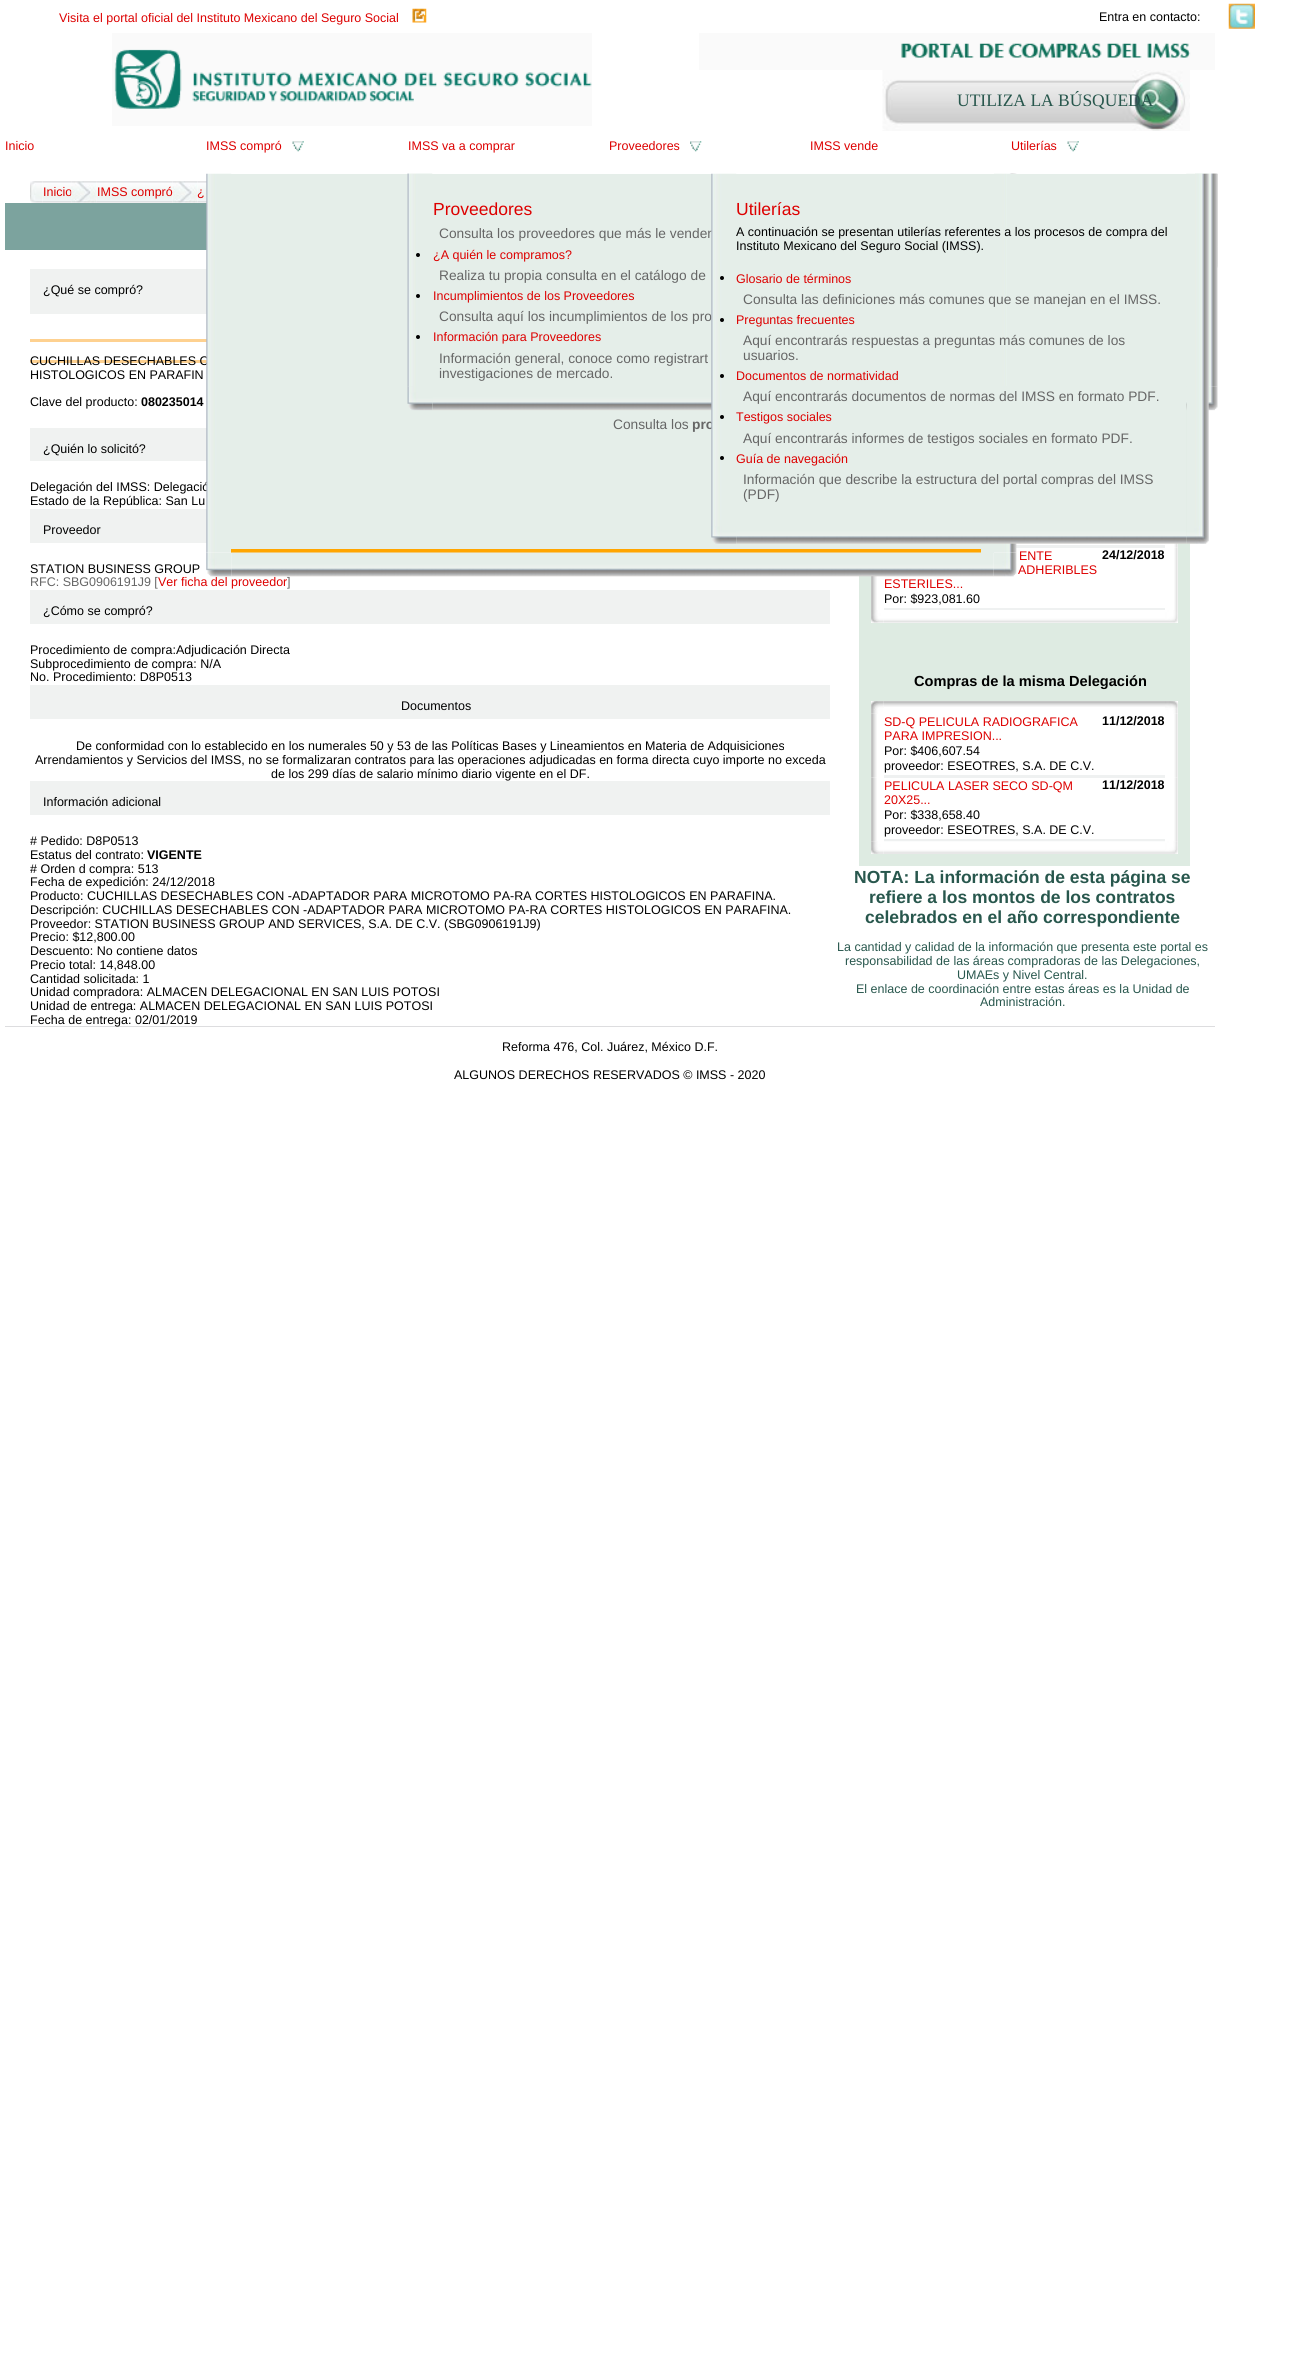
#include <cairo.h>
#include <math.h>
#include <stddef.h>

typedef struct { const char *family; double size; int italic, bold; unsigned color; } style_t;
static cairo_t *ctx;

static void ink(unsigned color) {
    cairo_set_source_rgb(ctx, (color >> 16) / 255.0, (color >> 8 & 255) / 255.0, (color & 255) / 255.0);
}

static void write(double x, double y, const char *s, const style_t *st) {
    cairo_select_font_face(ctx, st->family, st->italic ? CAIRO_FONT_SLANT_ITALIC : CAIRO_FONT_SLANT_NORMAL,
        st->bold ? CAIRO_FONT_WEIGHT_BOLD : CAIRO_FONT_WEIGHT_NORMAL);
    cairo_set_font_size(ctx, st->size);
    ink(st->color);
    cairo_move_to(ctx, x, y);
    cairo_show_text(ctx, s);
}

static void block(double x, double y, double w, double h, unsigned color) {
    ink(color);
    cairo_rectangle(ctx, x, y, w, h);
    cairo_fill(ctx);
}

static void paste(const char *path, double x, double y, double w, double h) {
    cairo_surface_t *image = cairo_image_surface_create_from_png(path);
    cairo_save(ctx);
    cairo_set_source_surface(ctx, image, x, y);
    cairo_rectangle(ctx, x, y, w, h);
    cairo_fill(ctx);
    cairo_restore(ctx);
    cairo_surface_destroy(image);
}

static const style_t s1 = {"Liberation Sans", 12.5, 0, 0, 0xdd0000};
static const style_t s2 = {"Liberation Sans", 12.5, 0, 0, 0x000000};
static const style_t s3 = {"Liberation Serif", 17.5, 0, 0, 0x28574d};
static const style_t s4 = {"Liberation Sans", 17.5, 0, 0, 0xdd0000};
static const style_t s5 = {"Liberation Sans", 13.75, 0, 0, 0x666666};
static const style_t s6 = {"Liberation Sans", 13.75, 0, 1, 0x666666};
static const style_t s7 = {"Liberation Sans", 12.5, 0, 0, 0x666666};
static const style_t s8 = {"Liberation Sans", 12.5, 0, 1, 0x000000};
static const style_t s9 = {"Liberation Sans", 14.6, 0, 1, 0x000000};
static const style_t s10 = {"Liberation Sans", 17.5, 0, 1, 0x28574d};
static const style_t s11 = {"Liberation Sans", 12.5, 0, 0, 0x28574d};

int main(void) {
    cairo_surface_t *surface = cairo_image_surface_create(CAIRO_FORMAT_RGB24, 1312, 2356);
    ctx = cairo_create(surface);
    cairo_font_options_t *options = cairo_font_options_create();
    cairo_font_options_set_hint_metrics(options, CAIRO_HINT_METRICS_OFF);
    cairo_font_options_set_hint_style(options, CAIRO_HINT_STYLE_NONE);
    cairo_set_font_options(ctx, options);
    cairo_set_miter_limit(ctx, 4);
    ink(0xffffff);
    cairo_paint(ctx);
    write(59, 22, "Visita el portal oficial del Instituto Mexicano del Seguro Social", &s1);
    paste("pic1.png", 412, 8, 15, 15);
    write(1099, 21, "Entra en contacto:", &s2);
    paste("pic2.png", 1228, 3, 27, 26);
    paste("pic3.png", 112, 33, 480, 93);
    paste("pic4.png", 699, 33, 516, 37);
    paste("pic5.png", 882, 70, 308, 61);
    write(957, 106, "UTILIZA LA BÚSQUEDA", &s3);
    write(5, 150, "Inicio", &s1);
    write(206, 150, "IMSS compró", &s1);
    paste("pic6.png", 292, 141, 12, 11);
    write(408, 150, "IMSS va a comprar", &s1);
    write(609, 150, "Proveedores", &s1);
    paste("pic7.png", 690, 141, 12, 11);
    write(810, 150, "IMSS vende", &s1);
    write(1011, 150, "Utilerías", &s1);
    paste("pic6.png", 1067, 141, 12, 11);
    paste("pic8.png", 407, 173, 26, 1);
    paste("pic9.png", 1195, 173, 23, 74);
    paste("pic10.png", 1217, 246, 1, 22);
    paste("pic26.png", 30, 181, 13, 22);
    paste("pic27.png", 42, 181, 30, 22);
    write(43, 196, "Inicio", &s1);
    paste("pic28.png", 71, 181, 26, 22);
    paste("pic29.png", 96, 181, 77, 22);
    paste("pic30.png", 172, 181, 26, 22);
    paste("pic31.png", 197, 181, 10, 22);
    block(5, 203, 202, 47, 0x7ca39e);
    block(30, 269, 177, 45, 0xf0f2f1);
    block(30, 339, 177, 3, 0xfed190);
    block(30, 360, 177, 3, 0xfed190);
    write(30, 365, "CUCHILLAS DESECHABLES C", &s2);
    block(30, 428, 177, 33, 0xf0f2f1);
    write(30, 491, "Delegación del IMSS: Delegació", &s2);
    block(30, 509, 177, 34, 0xf0f2f1);
    paste("pic21.png", 206, 173, 26, 380);
    block(859, 386, 331, 480, 0xdeebe2);
    block(871, 543, 307, 80, 0xffffff);
    block(231, 174, 763, 379, 0xe5eee9);
    paste("pic11.png", 407, 173, 25, 214);
    block(1016, 545, 149, 3, 0xeff1f1);
    paste("pic22.png", 994, 173, 23, 380);
    block(1007, 174, 180, 212, 0xe5eee9);
    write(433, 215, "Proveedores", &s4);
    write(439, 238, "Consulta los proveedores que más le venden", &s5);
    ink(0x000000);
    cairo_new_path(ctx);
    cairo_arc(ctx, 418, 255, 2, 0, 2 * M_PI);
    cairo_fill(ctx);
    write(433, 259, "¿A quién le compramos?", &s1);
    write(439, 280, "Realiza tu propia consulta en el catálogo de", &s5);
    ink(0x000000);
    cairo_new_path(ctx);
    cairo_arc(ctx, 418, 296, 2, 0, 2 * M_PI);
    cairo_fill(ctx);
    write(433, 300, "Incumplimientos de los Proveedores", &s1);
    write(439, 321, "Consulta aquí los incumplimientos de los pro", &s5);
    ink(0x000000);
    cairo_new_path(ctx);
    cairo_arc(ctx, 418, 337, 2, 0, 2 * M_PI);
    cairo_fill(ctx);
    write(433, 341, "Información para Proveedores", &s1);
    write(439, 363, "Información general, conoce como registrart", &s5);
    write(439, 378, "investigaciones de mercado.", &s5);
    paste("pic12.png", 1195, 173, 23, 214);
    paste("pic13.png", 407, 386, 26, 25);
    paste("pic14.png", 432, 386, 755, 25);
    paste("pic15.png", 1208, 386, 10, 25);
    write(692, 429, "pro", &s6);
    paste("pic16.png", 711, 173, 26, 347);
    block(736, 386, 450, 134, 0xe5eee9);
    write(736, 215, "Utilerías", &s4);
    write(736, 236, "A continuación se presentan utilerías referentes a los procesos de compra del", &s2);
    write(736, 250, "Instituto Mexicano del Seguro Social (IMSS).", &s2);
    cairo_new_path(ctx);
    cairo_arc(ctx, 722, 278, 2, 0, 2 * M_PI);
    cairo_fill(ctx);
    write(736, 283, "Glosario de términos", &s1);
    write(743, 304, "Consulta las definiciones más comunes que se manejan en el IMSS.", &s5);
    ink(0x000000);
    cairo_new_path(ctx);
    cairo_arc(ctx, 722, 320, 2, 0, 2 * M_PI);
    cairo_fill(ctx);
    write(736, 324, "Preguntas frecuentes", &s1);
    write(743, 345, "Aquí encontrarás respuestas a preguntas más comunes de los", &s5);
    write(743, 360, "usuarios.", &s5);
    ink(0x000000);
    cairo_new_path(ctx);
    cairo_arc(ctx, 722, 376, 2, 0, 2 * M_PI);
    cairo_fill(ctx);
    write(736, 380, "Documentos de normatividad", &s1);
    write(743, 401, "Aquí encontrarás documentos de normas del IMSS en formato PDF.", &s5);
    ink(0x000000);
    cairo_new_path(ctx);
    cairo_arc(ctx, 722, 417, 2, 0, 2 * M_PI);
    cairo_fill(ctx);
    write(736, 421, "Testigos sociales", &s1);
    write(743, 443, "Aquí encontrarás informes de testigos sociales en formato PDF.", &s5);
    ink(0x000000);
    cairo_new_path(ctx);
    cairo_arc(ctx, 722, 458, 2, 0, 2 * M_PI);
    cairo_fill(ctx);
    write(736, 463, "Guía de navegación", &s1);
    write(743, 484, "Información que describe la estructura del portal compras del IMSS", &s5);
    write(743, 499, "(PDF)", &s5);
    paste("pic17.png", 1186, 173, 23, 347);
    paste("pic18.png", 711, 520, 26, 24);
    paste("pic32.png", 1174, 543, 4, 5);
    paste("pic19.png", 736, 520, 451, 24);
    paste("pic20.png", 1186, 520, 23, 24);
    block(231, 549, 750, 4, 0xffa500);
    write(613, 429, "Consulta los", &s5);
    write(30, 586, "RFC: SBG0906191J9 [", &s7);
    write(158, 586, "Ver ficha del proveedor", &s1);
    paste("pic23.png", 206, 552, 26, 25);
    write(287, 586, "]", &s7);
    paste("pic33.png", 871, 576, 6, 34);
    paste("pic24.png", 231, 552, 763, 25);
    paste("pic25.png", 993, 552, 24, 25);
    write(97, 196, "IMSS compró", &s1);
    write(197, 196, "¿", &s1);
    write(43, 294, "¿Qué se compró?", &s2);
    write(30, 379, "HISTOLOGICOS EN PARAFIN", &s2);
    write(30, 406, "Clave del producto:", &s2);
    write(141, 406, "080235014", &s8);
    write(43, 453, "¿Quién lo solicitó?", &s2);
    write(30, 505, "Estado de la República: San Lu", &s2);
    write(43, 534, "Proveedor", &s2);
    write(30, 573, "STATION BUSINESS GROUP", &s2);
    block(30, 590, 800, 34, 0xf0f2f1);
    write(43, 615, "¿Cómo se compró?", &s2);
    write(30, 654, "Procedimiento de compra:Adjudicación Directa", &s2);
    write(30, 668, "Subprocedimiento de compra: N/A", &s2);
    write(30, 681, "No. Procedimiento: D8P0513", &s2);
    block(30, 685, 800, 34, 0xf0f2f1);
    write(401, 710, "Documentos", &s2);
    write(76, 750, "De conformidad con lo establecido en los numerales 50 y 53 de las Políticas Bases y Lineamientos en Materia de Adquisiciones", &s2);
    write(35, 764, "Arrendamientos y Servicios del IMSS, no se formalizaran contratos para las operaciones adjudicadas en forma directa cuyo importe no exceda", &s2);
    write(271, 778, "de los 299 días de salario mínimo diario vigente en el DF.", &s2);
    block(30, 781, 800, 34, 0xf0f2f1);
    write(43, 806, "Información adicional", &s2);
    write(30, 845, "# Pedido: D8P0513", &s2);
    write(30, 859, "Estatus del contrato:", &s2);
    write(147, 859, "VIGENTE", &s8);
    write(30, 873, "# Orden d compra: 513", &s2);
    write(30, 886, "Fecha de expedición: 24/12/2018", &s2);
    write(30, 900, "Producto: CUCHILLAS DESECHABLES CON -ADAPTADOR PARA MICROTOMO PA-RA CORTES HISTOLOGICOS EN PARAFINA.", &s2);
    write(30, 914, "Descripción: CUCHILLAS DESECHABLES CON -ADAPTADOR PARA MICROTOMO PA-RA CORTES HISTOLOGICOS EN PARAFINA.", &s2);
    write(30, 928, "Proveedor: STATION BUSINESS GROUP AND SERVICES, S.A. DE C.V. (SBG0906191J9)", &s2);
    write(30, 941, "Precio: $12,800.00", &s2);
    write(30, 955, "Descuento: No contiene datos", &s2);
    write(30, 969, "Precio total: 14,848.00", &s2);
    write(30, 983, "Cantidad solicitada: 1", &s2);
    write(30, 996, "Unidad compradora: ALMACEN DELEGACIONAL EN SAN LUIS POTOSI", &s2);
    write(30, 1010, "Unidad de entrega: ALMACEN DELEGACIONAL EN SAN LUIS POTOSI", &s2);
    block(5, 1026, 1210, 1, 0xdddddf);
    write(30, 1024, "Fecha de entrega: 02/01/2019", &s2);
    write(1019, 560, "ENTE", &s1);
    write(1102, 559, "24/12/2018", &s8);
    write(1018, 574, "ADHERIBLES", &s1);
    write(884, 588, "ESTERILES...", &s1);
    write(884, 603, "Por: $923,081.60", &s2);
    block(884, 608, 281, 2, 0xeff1f1);
    paste("pic34.png", 1174, 547, 4, 63);
    paste("pic35.png", 871, 610, 13, 13);
    paste("pic36.png", 884, 610, 281, 13);
    paste("pic37.png", 1165, 610, 13, 13);
    write(914, 686, "Compras de la misma Delegación", &s9);
    block(871, 701, 307, 153, 0xffffff);
    paste("pic38.png", 871, 701, 13, 13);
    paste("pic39.png", 883, 701, 282, 6);
    paste("pic40.png", 1165, 701, 13, 13);
    paste("pic41.png", 871, 713, 6, 65);
    write(884, 726, "SD-Q PELICULA RADIOGRAFICA", &s1);
    write(1102, 725, "11/12/2018", &s8);
    write(884, 740, "PARA IMPRESION...", &s1);
    write(884, 755, "Por: $406,607.54", &s2);
    write(884, 770, "proveedor: ESEOTRES, S.A. DE C.V.", &s2);
    block(884, 775, 281, 3, 0xeff1f1);
    paste("pic42.png", 1174, 714, 4, 64);
    paste("pic43.png", 871, 777, 6, 65);
    write(884, 790, "PELICULA LASER SECO SD-QM", &s1);
    write(1102, 789, "11/12/2018", &s8);
    write(884, 804, "20X25...", &s1);
    write(884, 819, "Por: $338,658.40", &s2);
    write(884, 834, "proveedor: ESEOTRES, S.A. DE C.V.", &s2);
    block(884, 839, 281, 3, 0xeff1f1);
    paste("pic44.png", 1174, 777, 4, 65);
    paste("pic45.png", 871, 841, 13, 13);
    paste("pic46.png", 884, 841, 281, 13);
    paste("pic47.png", 1165, 841, 13, 13);
    write(854, 883, "NOTA: La información de esta página se", &s10);
    write(869, 903, "refiere a los montos de los contratos", &s10);
    write(865, 923, "celebrados en el año correspondiente", &s10);
    write(837, 951, "La cantidad y calidad de la información que presenta este portal es", &s11);
    write(845, 965, "responsabilidad de las áreas compradoras de las Delegaciones,", &s11);
    write(957, 979, "UMAEs y Nivel Central.", &s11);
    write(856, 993, "El enlace de coordinación entre estas áreas es la Unidad de", &s11);
    write(980, 1006, "Administración.", &s11);
    write(502, 1051, "Reforma 476, Col. Juárez, México D.F.", &s2);
    write(454, 1079, "ALGUNOS DERECHOS RESERVADOS © IMSS - 2020", &s2);
    cairo_surface_write_to_png(surface, "screenshot.png");
    cairo_font_options_destroy(options);
    cairo_destroy(ctx);
    cairo_surface_destroy(surface);
    return 0;
}
